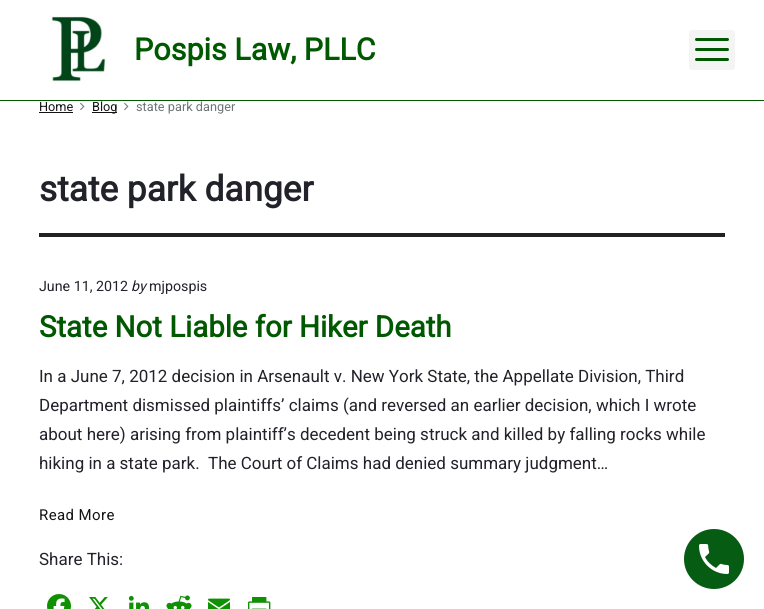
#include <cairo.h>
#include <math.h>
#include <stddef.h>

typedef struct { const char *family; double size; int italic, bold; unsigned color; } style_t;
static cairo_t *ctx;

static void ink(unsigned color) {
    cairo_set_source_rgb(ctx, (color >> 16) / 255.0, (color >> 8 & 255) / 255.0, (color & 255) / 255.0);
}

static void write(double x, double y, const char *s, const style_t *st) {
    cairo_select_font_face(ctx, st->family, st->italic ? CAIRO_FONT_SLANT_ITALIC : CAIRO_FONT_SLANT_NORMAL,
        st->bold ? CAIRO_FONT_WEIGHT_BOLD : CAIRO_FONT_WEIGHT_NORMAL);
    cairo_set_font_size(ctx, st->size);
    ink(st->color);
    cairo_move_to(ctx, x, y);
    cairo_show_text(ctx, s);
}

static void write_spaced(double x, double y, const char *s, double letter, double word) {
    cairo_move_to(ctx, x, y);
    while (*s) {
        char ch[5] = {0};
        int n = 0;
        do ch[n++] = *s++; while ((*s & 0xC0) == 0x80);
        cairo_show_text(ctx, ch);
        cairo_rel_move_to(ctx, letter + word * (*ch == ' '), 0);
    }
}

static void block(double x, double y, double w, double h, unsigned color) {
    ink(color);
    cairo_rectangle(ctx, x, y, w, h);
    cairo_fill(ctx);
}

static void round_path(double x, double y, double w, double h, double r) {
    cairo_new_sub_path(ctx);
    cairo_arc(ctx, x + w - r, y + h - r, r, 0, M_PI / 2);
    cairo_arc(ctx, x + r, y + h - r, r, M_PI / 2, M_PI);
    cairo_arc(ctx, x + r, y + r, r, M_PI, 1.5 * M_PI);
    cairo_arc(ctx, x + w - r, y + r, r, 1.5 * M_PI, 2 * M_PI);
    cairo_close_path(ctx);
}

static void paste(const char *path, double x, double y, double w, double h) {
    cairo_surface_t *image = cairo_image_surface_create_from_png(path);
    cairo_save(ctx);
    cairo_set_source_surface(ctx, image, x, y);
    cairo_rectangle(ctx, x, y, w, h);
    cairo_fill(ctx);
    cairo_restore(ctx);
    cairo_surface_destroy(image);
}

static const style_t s1 = {"Roboto", 30.5, 0, 1, 0x005900};
static const style_t s2 = {"Roboto", 12.75, 0, 0, 0x141414};
static const style_t s3 = {"Roboto", 12.75, 0, 0, 0x6d7377};
static const style_t s4 = {"Roboto", 35.25, 0, 1, 0x22222a};
static const style_t s5 = {"Roboto", 14.25, 0, 0, 0x22222a};
static const style_t s6 = {"Roboto", 14.25, 1, 0, 0x22222a};
static const style_t s7 = {"Roboto", 29.4, 0, 1, 0x005900};
static const style_t s8 = {"Roboto", 17, 0, 0, 0x22222a};

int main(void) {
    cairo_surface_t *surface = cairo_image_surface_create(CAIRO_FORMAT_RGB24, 764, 609);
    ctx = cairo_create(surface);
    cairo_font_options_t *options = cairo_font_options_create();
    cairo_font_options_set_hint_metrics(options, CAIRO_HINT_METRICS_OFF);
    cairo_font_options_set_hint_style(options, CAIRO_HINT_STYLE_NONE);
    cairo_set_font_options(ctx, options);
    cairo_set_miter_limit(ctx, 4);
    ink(0xffffff);
    cairo_paint(ctx);
    paste("pic1.png", 51, 16, 55, 66);
    write(134, 60, "Pospis Law, PLLC", &s1);
    ink(0xf4f4f4);
    round_path(689, 30, 46, 40, 3);
    cairo_fill(ctx);
    ink(0x005900);
    round_path(695, 48, 34, 3, 1.5);
    cairo_fill(ctx);
    round_path(695, 38, 34, 3, 1.5);
    cairo_fill(ctx);
    round_path(695, 58, 34, 3, 1.5);
    cairo_fill(ctx);
    block(0, 100, 764, 1, 0x005900);
    write(39, 111, "Home", &s2);
    block(39, 112, 34, 1, 0x141414);
    paste("pic2.png", 80, 102, 5, 9);
    block(92, 112, 25, 1, 0x141414);
    write(92, 111, "Blog", &s2);
    paste("pic2.png", 124, 102, 5, 9);
    write(136, 111, "state park danger", &s3);
    block(39, 233, 686, 4, 0x222222);
    write(39, 201, "state park danger", &s4);
    write(39, 291, "June 11, 2012", &s5);
    write(131, 291, "by", &s6);
    write(149, 291, "mjpospis", &s5);
    write(39, 337, "State Not Liable for Hiker Death", &s7);
    write(39, 382, "In a June 7, 2012 decision in Arsenault v. New York State, the Appellate Division, Third", &s8);
    write(39, 411, "Department dismissed plaintiffs’ claims (and reversed an earlier decision, which I wrote", &s8);
    write(39, 440, "about here) arising from plaintiff’s decedent being struck and killed by falling rocks while", &s8);
    write(39, 469, "hiking in a state park.  The Court of Claims had denied summary judgment…", &s8);
    cairo_set_font_size(ctx, 15);
    ink(0x141414);
    write_spaced(39, 520, "Read More", 0.4, 0);
    write(39, 565, "Share This:", &s8);
    paste("pic3.png", 47, 594, 24, 15);
    paste("pic4.png", 89, 597, 19, 12);
    paste("pic5.png", 128, 595, 22, 14);
    paste("pic6.png", 166, 595, 26, 14);
    paste("pic7.png", 208, 598, 22, 11);
    paste("pic8.png", 248, 597, 23, 12);
    ink(0x075c14);
    cairo_arc(ctx, 714, 559, 30, 0, 2 * M_PI);
    cairo_fill(ctx);
    paste("pic9.png", 699, 544, 30, 30);
    cairo_surface_write_to_png(surface, "screenshot.png");
    cairo_font_options_destroy(options);
    cairo_destroy(ctx);
    cairo_surface_destroy(surface);
    return 0;
}
